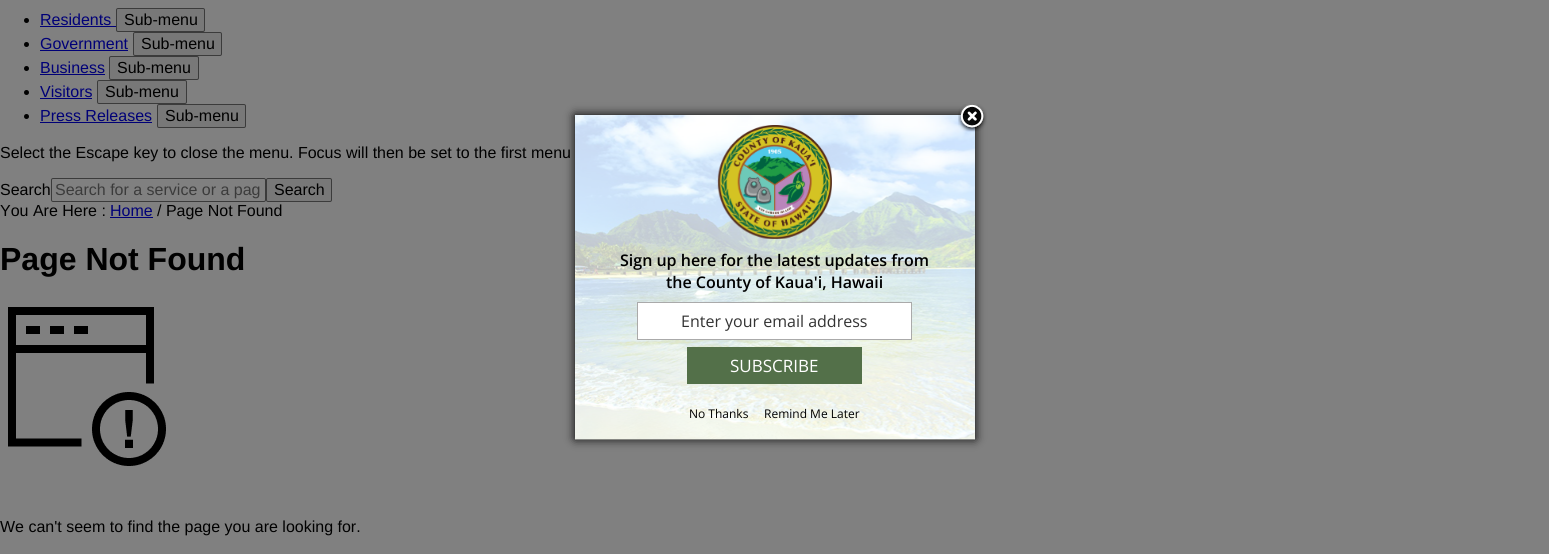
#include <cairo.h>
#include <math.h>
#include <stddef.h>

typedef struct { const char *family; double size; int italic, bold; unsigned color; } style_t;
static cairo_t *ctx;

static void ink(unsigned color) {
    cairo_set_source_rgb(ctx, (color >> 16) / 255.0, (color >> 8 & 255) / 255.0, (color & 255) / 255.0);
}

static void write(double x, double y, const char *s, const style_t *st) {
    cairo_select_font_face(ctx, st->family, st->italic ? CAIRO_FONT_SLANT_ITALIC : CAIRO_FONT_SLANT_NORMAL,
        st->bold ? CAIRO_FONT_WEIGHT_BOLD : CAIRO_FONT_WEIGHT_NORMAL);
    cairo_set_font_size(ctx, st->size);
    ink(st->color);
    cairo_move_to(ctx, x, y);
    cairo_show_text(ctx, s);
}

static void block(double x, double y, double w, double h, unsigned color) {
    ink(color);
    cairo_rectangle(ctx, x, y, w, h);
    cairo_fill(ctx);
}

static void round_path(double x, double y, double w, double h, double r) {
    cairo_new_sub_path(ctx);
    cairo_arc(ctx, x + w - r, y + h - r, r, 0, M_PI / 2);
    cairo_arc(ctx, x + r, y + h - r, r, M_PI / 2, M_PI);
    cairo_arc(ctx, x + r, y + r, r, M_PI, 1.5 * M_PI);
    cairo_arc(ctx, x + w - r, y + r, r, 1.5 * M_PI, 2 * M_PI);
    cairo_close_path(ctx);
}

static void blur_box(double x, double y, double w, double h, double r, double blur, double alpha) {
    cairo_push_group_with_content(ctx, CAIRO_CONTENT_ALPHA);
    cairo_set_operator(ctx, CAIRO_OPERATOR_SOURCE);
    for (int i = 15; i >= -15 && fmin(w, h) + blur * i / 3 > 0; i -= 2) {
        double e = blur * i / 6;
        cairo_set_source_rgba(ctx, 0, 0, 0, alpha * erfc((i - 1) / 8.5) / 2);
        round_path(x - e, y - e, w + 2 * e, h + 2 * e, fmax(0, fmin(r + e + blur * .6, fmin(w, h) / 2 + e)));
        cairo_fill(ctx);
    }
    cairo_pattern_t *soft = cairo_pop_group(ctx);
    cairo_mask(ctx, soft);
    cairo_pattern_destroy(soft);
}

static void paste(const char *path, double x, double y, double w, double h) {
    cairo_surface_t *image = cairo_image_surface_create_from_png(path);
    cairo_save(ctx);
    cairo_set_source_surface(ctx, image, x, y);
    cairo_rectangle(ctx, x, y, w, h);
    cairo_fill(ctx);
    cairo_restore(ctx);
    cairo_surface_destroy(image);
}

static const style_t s1 = {"Liberation Sans", 16, 0, 0, 0x000077};
static const style_t s2 = {"Liberation Sans", 16, 0, 0, 0x000000};
static const style_t s3 = {"Liberation Sans", 16, 0, 0, 0x3b3b3b};
static const style_t s4 = {"Liberation Sans", 32, 0, 1, 0x000000};
static const style_t s5 = {"Open Sans SemiBold", 16, 0, 0, 0x000000};
static const style_t s6 = {"Open Sans", 16, 0, 0, 0x333333};
static const style_t s7 = {"Open Sans", 17, 0, 0, 0xffffff};
static const style_t s8 = {"Open Sans", 12, 0, 0, 0x000000};

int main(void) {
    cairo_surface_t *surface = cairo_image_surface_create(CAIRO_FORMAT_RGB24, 1549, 554);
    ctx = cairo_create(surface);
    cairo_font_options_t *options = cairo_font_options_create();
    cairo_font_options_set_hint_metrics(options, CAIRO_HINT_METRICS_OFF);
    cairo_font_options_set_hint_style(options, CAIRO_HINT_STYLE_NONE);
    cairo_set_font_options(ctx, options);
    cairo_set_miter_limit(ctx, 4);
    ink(0x808080);
    cairo_paint(ctx);
    ink(0x000000);
    cairo_arc(ctx, 26.5, 20.5, 2.5, 0, 2 * M_PI);
    cairo_fill(ctx);
    write(40, 25, "Residents", &s1);
    block(40, 26, 76, 1, 0x000077);
    ink(0x787878);
    round_path(116.5, 8.5, 88, 23, 1.5);
    cairo_fill_preserve(ctx);
    ink(0x3b3b3b);
    cairo_set_line_width(ctx, 1);
    cairo_stroke(ctx);
    write(124, 25, "Sub-menu", &s2);
    cairo_new_path(ctx);
    cairo_arc(ctx, 26.5, 44.5, 2.5, 0, 2 * M_PI);
    cairo_fill(ctx);
    write(40, 49, "Government", &s1);
    block(40, 50, 88, 1, 0x000077);
    ink(0x787878);
    round_path(133.5, 32.5, 88, 23, 1.5);
    cairo_fill_preserve(ctx);
    ink(0x3b3b3b);
    cairo_stroke(ctx);
    write(141, 49, "Sub-menu", &s2);
    cairo_new_path(ctx);
    cairo_arc(ctx, 26.5, 68.5, 2.5, 0, 2 * M_PI);
    cairo_fill(ctx);
    write(40, 73, "Business", &s1);
    block(40, 74, 65, 1, 0x000077);
    ink(0x787878);
    round_path(109.5, 56.5, 89, 23, 1.5);
    cairo_fill_preserve(ctx);
    ink(0x3b3b3b);
    cairo_stroke(ctx);
    write(117, 73, "Sub-menu", &s2);
    cairo_new_path(ctx);
    cairo_arc(ctx, 26.5, 92.5, 2.5, 0, 2 * M_PI);
    cairo_fill(ctx);
    write(40, 97, "Visitors", &s1);
    block(40, 98, 52, 1, 0x000077);
    ink(0x787878);
    round_path(97.5, 80.5, 89, 23, 1.5);
    cairo_fill_preserve(ctx);
    ink(0x3b3b3b);
    cairo_stroke(ctx);
    write(105, 97, "Sub-menu", &s2);
    cairo_new_path(ctx);
    cairo_arc(ctx, 26.5, 116.5, 2.5, 0, 2 * M_PI);
    cairo_fill(ctx);
    write(40, 121, "Press Releases", &s1);
    block(40, 122, 112, 1, 0x000077);
    ink(0x787878);
    round_path(157.5, 104.5, 88, 23, 1.5);
    cairo_fill_preserve(ctx);
    ink(0x3b3b3b);
    cairo_stroke(ctx);
    write(165, 121, "Sub-menu", &s2);
    write(0, 158, "Select the Escape key to close the menu. Focus will then be set to the first menu", &s2);
    write(0, 195, "Search", &s2);
    round_path(51.5, 178.5, 214, 23, 1.5);
    ink(0x3b3b3b);
    cairo_stroke(ctx);
    write(55, 195, "Search for a service or a pag", &s3);
    ink(0x787878);
    round_path(266.5, 178.5, 65, 23, 1.5);
    cairo_fill_preserve(ctx);
    ink(0x3b3b3b);
    cairo_stroke(ctx);
    write(274, 195, "Search", &s2);
    write(0, 216, "You Are Here :", &s2);
    write(110, 216, "Home", &s1);
    block(110, 217, 43, 1, 0x000077);
    write(157, 216, "/ Page Not Found", &s2);
    write(0, 270, "Page Not Found", &s4);
    paste("pic1.png", 8, 307, 158, 159);
    write(0, 532, "We can't seem to find the page you are looking for.", &s2);
    ink(0x000000);
    blur_box(575, 115, 400, 324, 0, 5, 1);
    paste("pic2.png", 575, 115, 400, 325);
    paste("pic3.png", 958, 104, 29, 28);
    paste("pic4.png", 717, 125, 115, 114);
    write(620, 266, "Sign up here for the latest updates from", &s5);
    write(666, 288, "the County of Kaua'i, Hawaii", &s5);
    ink(0xffffff);
    cairo_rectangle(ctx, 637.5, 302.5, 274, 37);
    cairo_fill_preserve(ctx);
    ink(0xaaaaaa);
    cairo_stroke(ctx);
    write(681, 327, "Enter your email address", &s6);
    block(687, 347, 175, 37, 0x537049);
    write(730, 372, "SUBSCRIBE", &s7);
    write(689, 418, "No Thanks", &s8);
    write(764, 418, "Remind Me Later", &s8);
    cairo_surface_write_to_png(surface, "screenshot.png");
    cairo_font_options_destroy(options);
    cairo_destroy(ctx);
    cairo_surface_destroy(surface);
    return 0;
}
